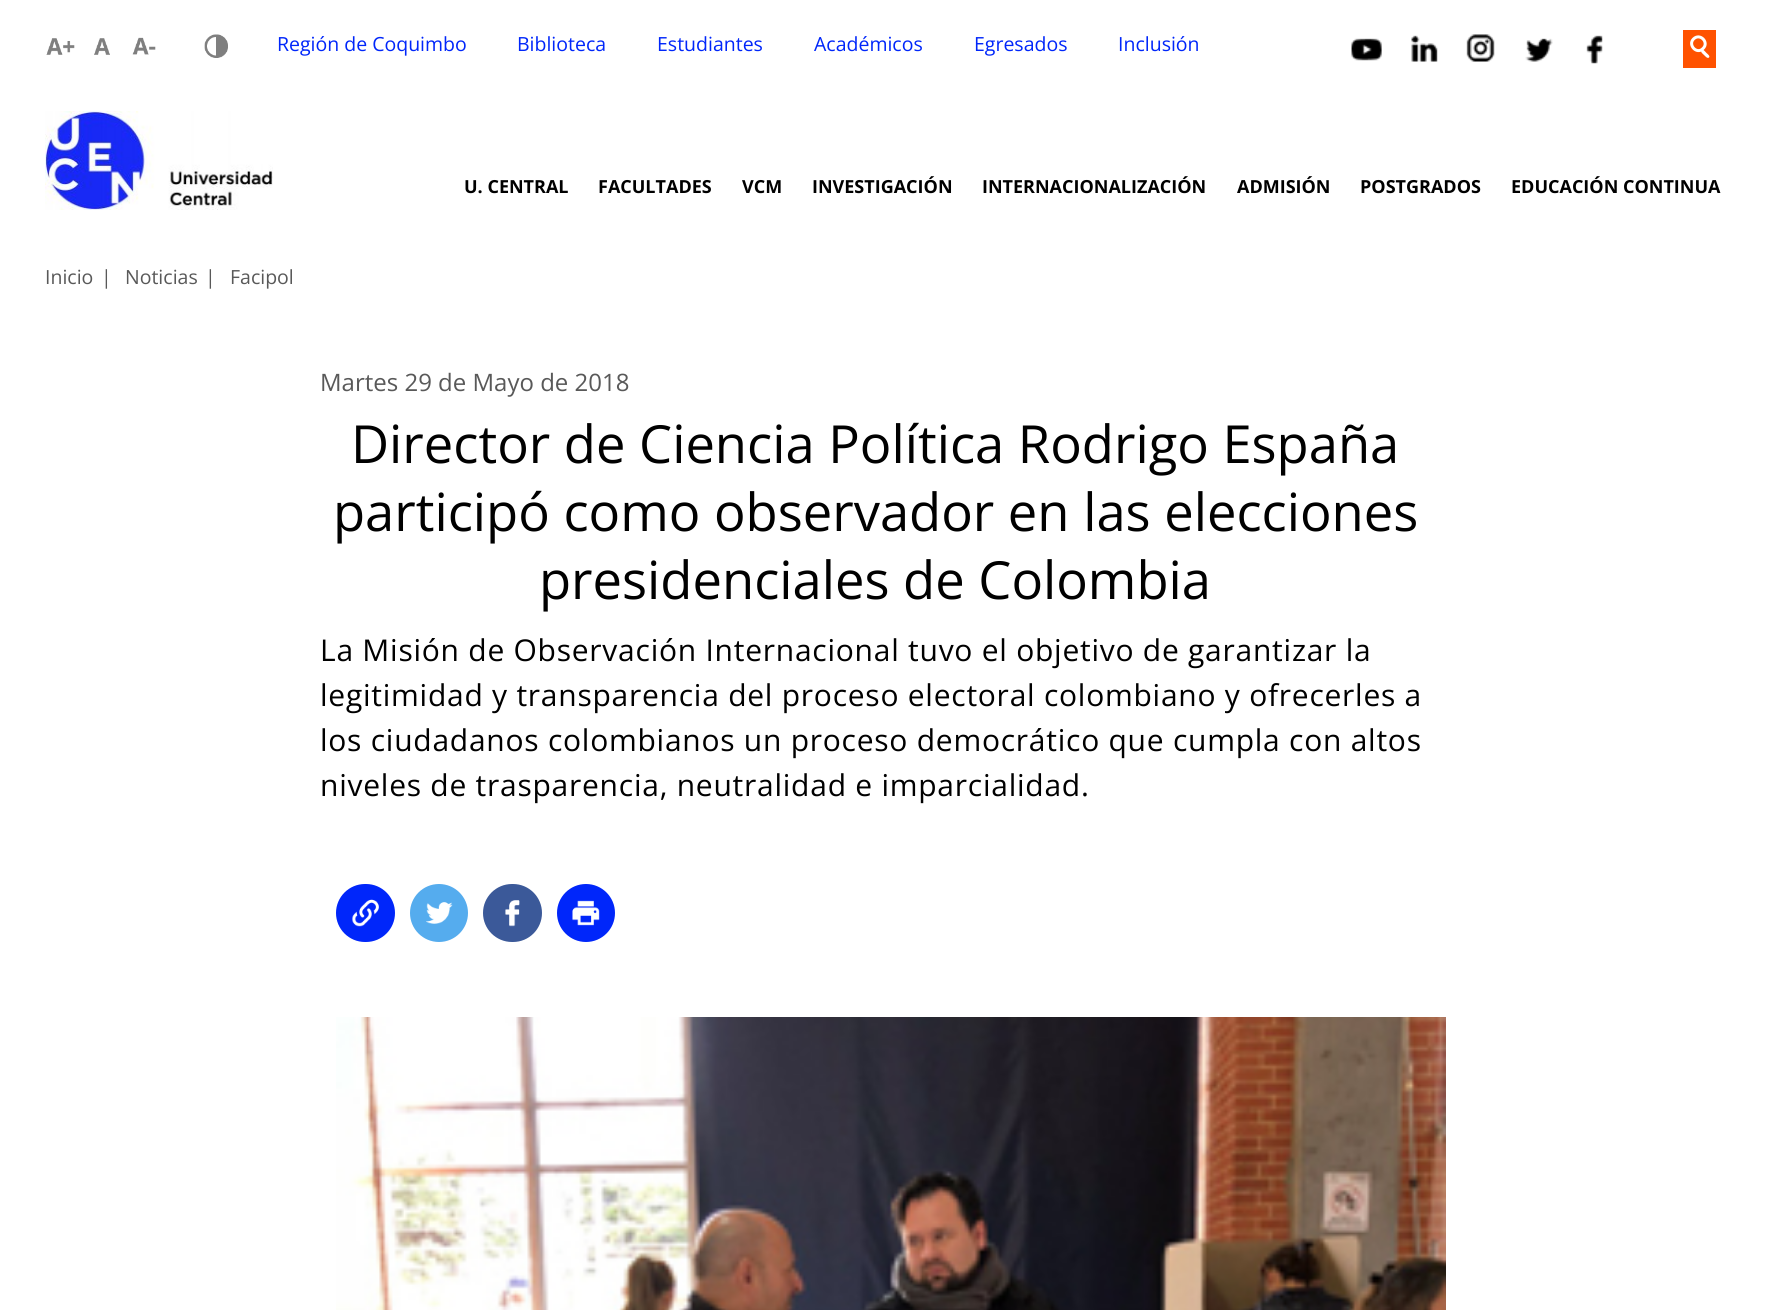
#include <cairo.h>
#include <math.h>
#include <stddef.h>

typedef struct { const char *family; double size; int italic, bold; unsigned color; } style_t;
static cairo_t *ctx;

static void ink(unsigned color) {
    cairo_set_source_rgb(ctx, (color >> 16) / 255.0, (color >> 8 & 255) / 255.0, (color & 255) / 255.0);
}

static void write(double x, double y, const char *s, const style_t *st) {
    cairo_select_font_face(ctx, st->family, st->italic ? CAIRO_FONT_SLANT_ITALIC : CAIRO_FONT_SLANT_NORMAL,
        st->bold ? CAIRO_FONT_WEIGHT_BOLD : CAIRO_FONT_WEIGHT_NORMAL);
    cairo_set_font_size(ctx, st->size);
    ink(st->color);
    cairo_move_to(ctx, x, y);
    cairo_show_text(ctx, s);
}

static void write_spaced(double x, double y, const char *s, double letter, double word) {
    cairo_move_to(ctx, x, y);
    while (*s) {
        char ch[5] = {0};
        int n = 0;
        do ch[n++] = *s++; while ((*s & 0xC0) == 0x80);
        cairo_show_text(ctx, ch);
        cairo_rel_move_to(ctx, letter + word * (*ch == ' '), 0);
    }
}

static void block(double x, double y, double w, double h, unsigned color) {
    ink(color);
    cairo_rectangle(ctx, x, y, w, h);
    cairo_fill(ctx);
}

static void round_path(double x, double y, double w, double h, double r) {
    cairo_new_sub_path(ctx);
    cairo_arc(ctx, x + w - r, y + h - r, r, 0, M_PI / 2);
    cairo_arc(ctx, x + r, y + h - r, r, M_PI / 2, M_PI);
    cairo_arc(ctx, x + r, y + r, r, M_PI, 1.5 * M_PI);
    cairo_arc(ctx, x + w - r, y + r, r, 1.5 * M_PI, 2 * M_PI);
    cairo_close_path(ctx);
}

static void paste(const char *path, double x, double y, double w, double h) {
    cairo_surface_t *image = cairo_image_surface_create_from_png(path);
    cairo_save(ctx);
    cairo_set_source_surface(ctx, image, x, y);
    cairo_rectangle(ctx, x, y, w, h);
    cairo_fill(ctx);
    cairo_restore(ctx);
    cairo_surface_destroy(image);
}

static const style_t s1 = {"Open Sans", 19.5, 0, 0, 0x0026fa};
static const style_t s2 = {"Open Sans", 18, 0, 1, 0x000000};
static const style_t s3 = {"Open Sans", 19.5, 0, 0, 0x595959};
static const style_t s4 = {"Open Sans", 24, 0, 0, 0x595959};
static const style_t s5 = {"Open Sans", 52.5, 0, 0, 0x000000};

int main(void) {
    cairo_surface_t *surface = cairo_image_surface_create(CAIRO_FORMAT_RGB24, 1780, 1310);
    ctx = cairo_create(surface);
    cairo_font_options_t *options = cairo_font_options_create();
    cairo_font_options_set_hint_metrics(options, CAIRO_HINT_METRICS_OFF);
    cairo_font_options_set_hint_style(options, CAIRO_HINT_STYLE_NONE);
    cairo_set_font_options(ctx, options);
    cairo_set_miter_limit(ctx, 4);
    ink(0xffffff);
    cairo_paint(ctx);
    paste("pic1.png", 46, 38, 29, 17);
    paste("pic2.png", 94, 38, 16, 17);
    paste("pic3.png", 132, 37, 24, 18);
    paste("pic4.png", 204, 34, 24, 24);
    write(277, 51, "Región de Coquimbo", &s1);
    write(517, 51, "Biblioteca", &s1);
    write(657, 51, "Estudiantes", &s1);
    write(814, 51, "Académicos", &s1);
    write(974, 51, "Egresados", &s1);
    write(1118, 51, "Inclusión", &s1);
    paste("pic5.png", 1351, 38, 31, 23);
    paste("pic6.png", 1411, 35, 27, 27);
    paste("pic7.png", 1466, 34, 29, 28);
    paste("pic8.png", 1525, 38, 28, 24);
    paste("pic9.png", 1586, 35, 17, 29);
    block(1683, 30, 33, 38, 0xff5200);
    ink(0xffffff);
    cairo_new_path(ctx);
    cairo_move_to(ctx, 1701.5, 50);
    cairo_curve_to(ctx, 1703, 48.5, 1705.5, 52, 1706.5, 53);
    cairo_curve_to(ctx, 1707, 53.5, 1710.5, 56, 1709, 57.5);
    cairo_curve_to(ctx, 1707.5, 59, 1705, 56, 1704, 55);
    cairo_curve_to(ctx, 1703, 54, 1700, 52, 1701.5, 50);
    cairo_close_path(ctx);
    cairo_fill(ctx);
    cairo_new_path(ctx);
    cairo_move_to(ctx, 1693.5, 39);
    cairo_curve_to(ctx, 1700, 32.5, 1709.5, 42.5, 1703, 48.5);
    cairo_curve_to(ctx, 1697, 55, 1687.5, 45, 1693.5, 39);
    cairo_close_path(ctx);
    cairo_set_line_width(ctx, 3);
    cairo_stroke(ctx);
    paste("pic10.png", 45, 111, 228, 99);
    write(464, 193, "U. CENTRAL", &s2);
    write(598, 193, "FACULTADES", &s2);
    write(742, 193, "VCM", &s2);
    write(812, 193, "INVESTIGACIÓN", &s2);
    write(982, 193, "INTERNACIONALIZACIÓN", &s2);
    write(1237, 193, "ADMISIÓN", &s2);
    write(1360, 193, "POSTGRADOS", &s2);
    write(1511, 193, "EDUCACIÓN CONTINUA", &s2);
    write(45, 284, "Inicio", &s3);
    write(101, 284, "|", &s3);
    write(125, 284, "Noticias", &s3);
    write(205, 284, "|", &s3);
    write(230, 284, "Facipol", &s3);
    write(320, 391, "Martes 29 de Mayo de 2018", &s4);
    write(351, 463, "Director de Ciencia Política Rodrigo España", &s5);
    write(333, 531, "participó como observador en las elecciones", &s5);
    write(539, 599, "presidenciales de Colombia", &s5);
    cairo_set_font_size(ctx, 30);
    write_spaced(320, 661, "La Misión de Observación Internacional tuvo el objetivo de garantizar la", 0.75, 0);
    write_spaced(320, 706, "legitimidad y transparencia del proceso electoral colombiano y ofrecerles a", 0.75, 0);
    write_spaced(320, 751, "los ciudadanos colombianos un proceso democrático que cumpla con altos", 0.75, 0);
    write_spaced(320, 796, "niveles de trasparencia, neutralidad e imparcialidad.", 0.75, 0);
    ink(0x0026fa);
    round_path(336, 884, 59, 58, 29);
    cairo_fill(ctx);
    paste("pic11.png", 352, 899, 27, 28);
    ink(0x55acee);
    cairo_arc(ctx, 439, 913, 29, 0, 2 * M_PI);
    cairo_fill(ctx);
    paste("pic12.png", 426, 902, 27, 22);
    ink(0x3b5999);
    round_path(483, 884, 59, 58, 29);
    cairo_fill(ctx);
    paste("pic13.png", 505, 900, 15, 27);
    ink(0x0026fa);
    cairo_arc(ctx, 586, 913, 29, 0, 2 * M_PI);
    cairo_fill(ctx);
    paste("pic14.png", 572, 900, 28, 26);
    paste("pic15.png", 336, 1017, 1110, 293);
    cairo_surface_write_to_png(surface, "screenshot.png");
    cairo_font_options_destroy(options);
    cairo_destroy(ctx);
    cairo_surface_destroy(surface);
    return 0;
}
